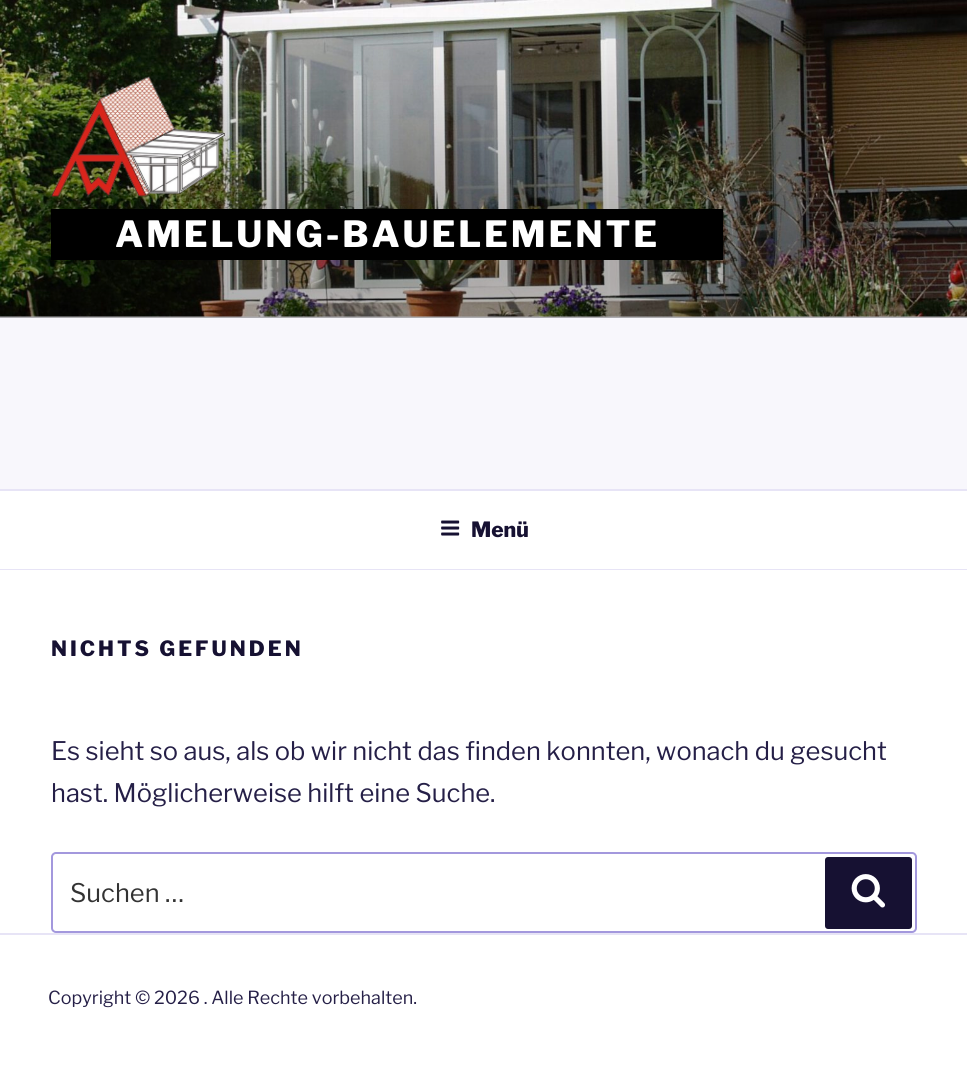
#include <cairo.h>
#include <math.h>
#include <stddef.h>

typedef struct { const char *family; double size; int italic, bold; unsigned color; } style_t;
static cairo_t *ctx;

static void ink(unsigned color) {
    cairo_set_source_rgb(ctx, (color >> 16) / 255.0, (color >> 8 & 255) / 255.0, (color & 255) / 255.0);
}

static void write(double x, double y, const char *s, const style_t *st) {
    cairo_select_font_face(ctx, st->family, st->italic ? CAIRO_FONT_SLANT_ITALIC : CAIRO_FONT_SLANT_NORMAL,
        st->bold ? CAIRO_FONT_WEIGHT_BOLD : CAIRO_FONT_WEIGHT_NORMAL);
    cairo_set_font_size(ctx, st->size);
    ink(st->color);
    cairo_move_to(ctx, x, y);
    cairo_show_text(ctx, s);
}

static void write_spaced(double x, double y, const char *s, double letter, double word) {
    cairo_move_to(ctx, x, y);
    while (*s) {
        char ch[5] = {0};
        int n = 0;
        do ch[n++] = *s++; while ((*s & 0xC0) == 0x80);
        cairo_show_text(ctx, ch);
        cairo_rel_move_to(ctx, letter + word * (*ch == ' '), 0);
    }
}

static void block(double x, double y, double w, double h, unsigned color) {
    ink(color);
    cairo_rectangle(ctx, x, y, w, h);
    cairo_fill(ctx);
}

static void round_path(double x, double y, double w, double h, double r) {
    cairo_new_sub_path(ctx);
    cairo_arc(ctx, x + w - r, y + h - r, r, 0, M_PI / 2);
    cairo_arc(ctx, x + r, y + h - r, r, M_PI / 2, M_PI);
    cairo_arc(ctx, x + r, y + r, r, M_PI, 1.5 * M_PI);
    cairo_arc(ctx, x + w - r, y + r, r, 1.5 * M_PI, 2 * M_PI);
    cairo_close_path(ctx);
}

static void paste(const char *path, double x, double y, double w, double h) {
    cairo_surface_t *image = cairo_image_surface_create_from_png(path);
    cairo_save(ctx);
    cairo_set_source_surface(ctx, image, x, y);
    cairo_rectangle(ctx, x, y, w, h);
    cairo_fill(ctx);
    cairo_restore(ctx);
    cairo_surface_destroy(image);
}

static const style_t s1 = {"Libre Franklin Thin", 21, 0, 0, 0x161132};
static const style_t s2 = {"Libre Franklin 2 Thin", 25.5, 0, 0, 0x251f47};
static const style_t s3 = {"Libre Franklin 2 Thin", 25.5, 0, 0, 0x333333};
static const style_t s4 = {"Libre Franklin 2 Thin", 18, 0, 0, 0x251f47};

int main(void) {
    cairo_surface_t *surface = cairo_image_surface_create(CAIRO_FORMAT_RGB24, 967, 1076);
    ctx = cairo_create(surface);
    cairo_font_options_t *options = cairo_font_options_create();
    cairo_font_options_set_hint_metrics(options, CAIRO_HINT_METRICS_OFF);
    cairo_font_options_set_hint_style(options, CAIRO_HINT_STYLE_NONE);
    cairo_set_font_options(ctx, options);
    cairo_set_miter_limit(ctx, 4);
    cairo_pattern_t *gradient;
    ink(0xffffff);
    cairo_paint(ctx);
    block(0, 316, 967, 173, 0xf8f7fc);
    paste("pic1.png", 0, 0, 967, 317);
    gradient = cairo_pattern_create_linear(484, 0, 484, 318);
    cairo_pattern_add_color_stop_rgba(gradient, 0, 0, 0, 0, 0);
    cairo_pattern_add_color_stop_rgba(gradient, 0.75, 0, 0, 0, 0.3);
    cairo_pattern_add_color_stop_rgba(gradient, 1, 0, 0, 0, 0.3);
    cairo_set_source(ctx, gradient);
    cairo_pattern_destroy(gradient);
    cairo_rectangle(ctx, 0, 17, 967, 301);
    cairo_fill(ctx);
    paste("pic2.png", 51, 76, 174, 121);
    block(51, 209, 672, 51, 0x000000);
    cairo_select_font_face(ctx, "Libre Franklin Thin", CAIRO_FONT_SLANT_NORMAL, CAIRO_FONT_WEIGHT_NORMAL);
    cairo_set_font_size(ctx, 36);
    ink(0xffffff);
    write_spaced(115, 247, "AMELUNG-BAUELEMENTE", 2.9, 0);
    block(0, 489, 967, 2, 0xe7e4f6);
    block(0, 569, 967, 1, 0xe7e4f6);
    paste("pic3.png", 441, 520, 19, 16);
    write(471, 537, "Menü", &s1);
    write_spaced(51, 656, "NICHTS GEFUNDEN", 3, 0);
    write(51, 760, "Es sieht so aus, als ob wir nicht das finden konnten, wonach du gesucht", &s2);
    write(51, 802, "hast. Möglicherweise hilft eine Suche.", &s2);
    round_path(52, 853, 864, 79, 4);
    ink(0xa398dd);
    cairo_stroke(ctx);
    write(70, 902, "Suchen …", &s3);
    ink(0x161132);
    round_path(825, 857, 87, 72, 3);
    cairo_fill(ctx);
    paste("pic4.png", 851, 874, 34, 34);
    block(0, 933, 967, 2, 0xe7e4f6);
    write(48, 1004, "Copyright © 2026 . Alle Rechte vorbehalten.", &s4);
    cairo_surface_write_to_png(surface, "screenshot.png");
    cairo_font_options_destroy(options);
    cairo_destroy(ctx);
    cairo_surface_destroy(surface);
    return 0;
}
